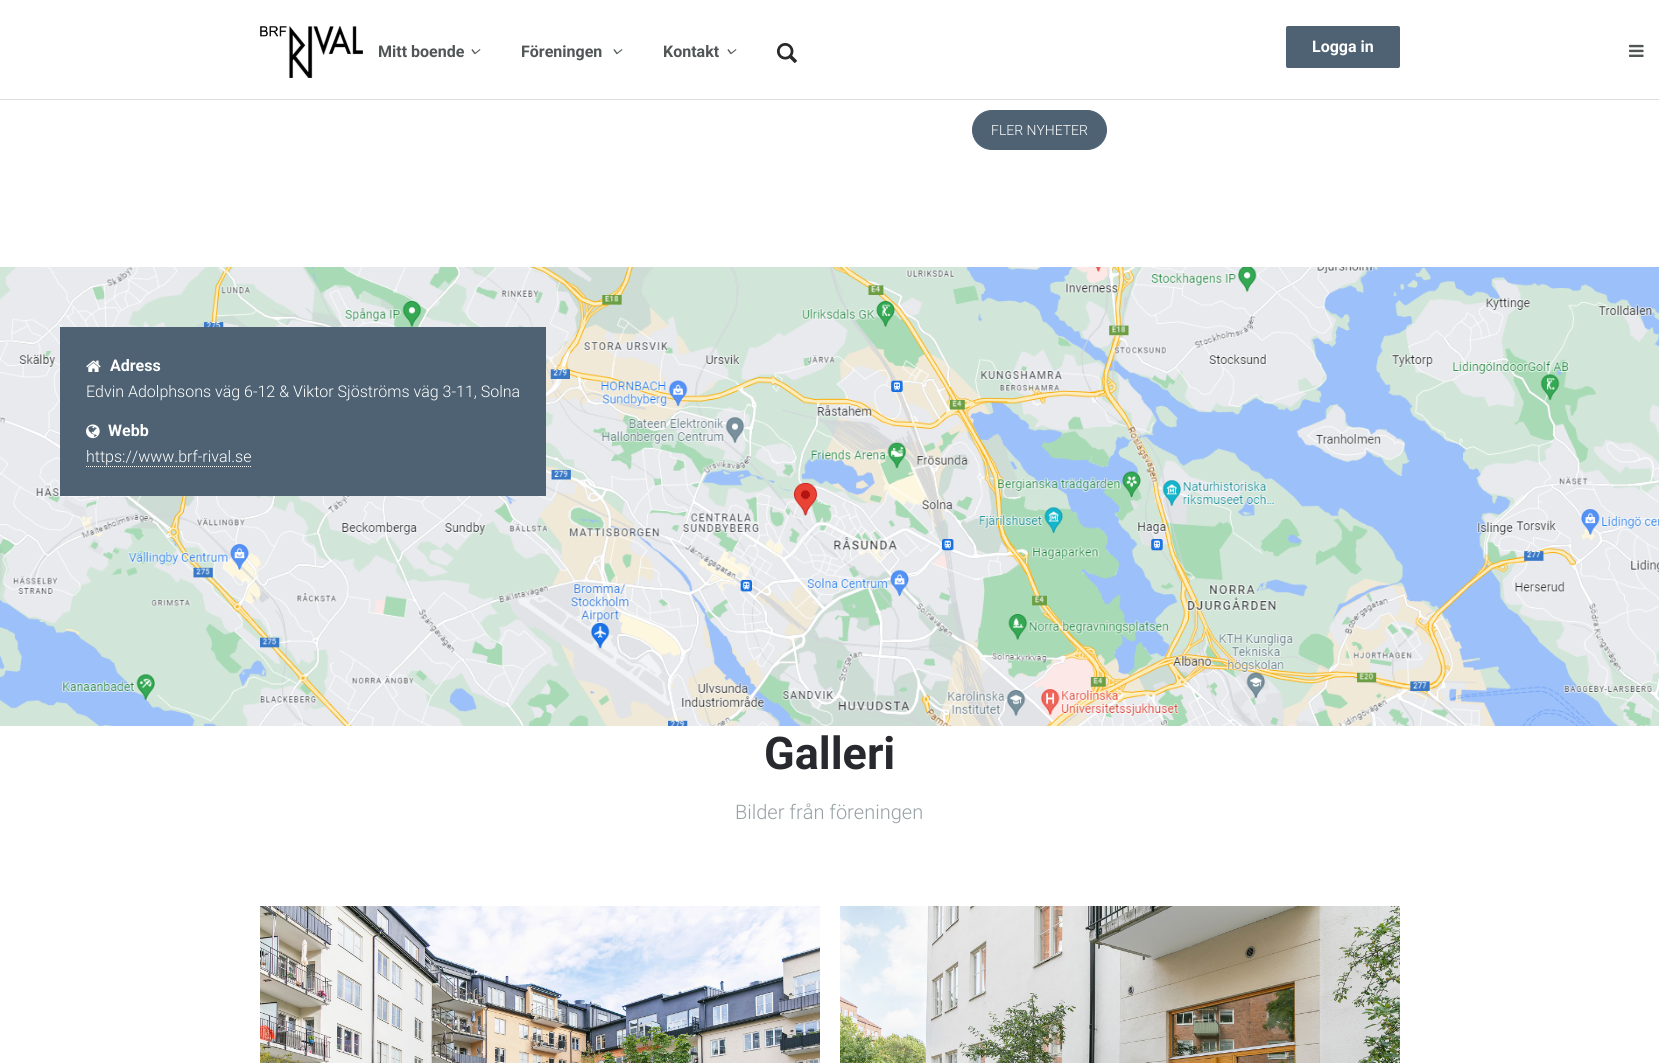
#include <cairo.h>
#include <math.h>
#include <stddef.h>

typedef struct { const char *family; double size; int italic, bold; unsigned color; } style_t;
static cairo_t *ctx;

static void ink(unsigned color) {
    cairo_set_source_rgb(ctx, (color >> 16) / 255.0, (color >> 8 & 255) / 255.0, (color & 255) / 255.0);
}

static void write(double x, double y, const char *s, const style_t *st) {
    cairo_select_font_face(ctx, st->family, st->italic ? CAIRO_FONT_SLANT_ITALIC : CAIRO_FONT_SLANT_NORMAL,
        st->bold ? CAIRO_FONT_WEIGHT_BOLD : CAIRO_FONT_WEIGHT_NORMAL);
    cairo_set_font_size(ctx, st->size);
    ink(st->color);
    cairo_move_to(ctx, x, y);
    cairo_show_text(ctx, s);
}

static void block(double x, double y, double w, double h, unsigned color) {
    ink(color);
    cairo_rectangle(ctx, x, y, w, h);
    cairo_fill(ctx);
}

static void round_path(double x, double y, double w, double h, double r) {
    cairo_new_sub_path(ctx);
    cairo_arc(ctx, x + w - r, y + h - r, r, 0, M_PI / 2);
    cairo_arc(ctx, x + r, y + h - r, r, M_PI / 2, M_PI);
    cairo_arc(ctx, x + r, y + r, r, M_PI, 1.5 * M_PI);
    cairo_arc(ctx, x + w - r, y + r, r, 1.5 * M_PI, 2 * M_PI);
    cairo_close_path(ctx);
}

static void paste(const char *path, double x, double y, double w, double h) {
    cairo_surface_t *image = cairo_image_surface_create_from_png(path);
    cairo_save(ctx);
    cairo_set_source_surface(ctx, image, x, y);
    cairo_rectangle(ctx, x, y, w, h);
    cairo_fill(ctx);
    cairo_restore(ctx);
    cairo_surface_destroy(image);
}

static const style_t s1 = {"Roboto", 16, 0, 1, 0x505656};
static const style_t s2 = {"Roboto", 16, 0, 1, 0xffffff};
static const style_t s3 = {"Roboto Light", 14, 0, 0, 0xffffff};
static const style_t s4 = {"Roboto Light", 16, 0, 0, 0xffffff};
static const style_t s5 = {"Roboto", 45, 0, 1, 0x27292e};
static const style_t s6 = {"Roboto Light", 20, 0, 0, 0x96a1a3};

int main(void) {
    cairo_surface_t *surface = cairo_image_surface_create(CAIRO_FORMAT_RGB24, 1659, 1063);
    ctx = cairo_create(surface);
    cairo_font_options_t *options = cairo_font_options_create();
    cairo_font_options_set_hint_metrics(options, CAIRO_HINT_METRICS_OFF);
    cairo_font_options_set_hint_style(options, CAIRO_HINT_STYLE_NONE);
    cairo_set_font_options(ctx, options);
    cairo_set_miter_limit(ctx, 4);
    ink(0xffffff);
    cairo_paint(ctx);
    block(0, 99, 1659, 1, 0xdadedf);
    paste("pic1.png", 259, 26, 104, 52);
    write(378, 57, "Mitt boende", &s1);
    paste("pic2.png", 471, 49, 10, 6);
    write(521, 57, "Föreningen", &s1);
    paste("pic2.png", 613, 49, 10, 6);
    write(663, 57, "Kontakt", &s1);
    paste("pic2.png", 727, 49, 10, 6);
    paste("pic3.png", 777, 43, 20, 20);
    ink(0x4e6273);
    round_path(1286, 26, 114, 42, 2);
    cairo_fill(ctx);
    write(1312, 52, "Logga in", &s2);
    paste("pic4.png", 1629, 44, 15, 13);
    ink(0x4e6273);
    round_path(972.5, 110.5, 134, 39, 19.5);
    cairo_fill_preserve(ctx);
    cairo_set_line_width(ctx, 1);
    cairo_stroke(ctx);
    write(991, 135, "FLER NYHETER", &s3);
    paste("pic5.png", 0, 267, 1659, 459);
    block(60, 327, 486, 169, 0x4e6273);
    paste("pic6.png", 86, 360, 15, 12);
    write(110, 371, "Adress", &s2);
    write(86, 397, "Edvin Adolphsons väg 6-12 & Viktor Sjöströms väg 3-11, Solna", &s4);
    paste("pic7.png", 86, 424, 14, 15);
    write(108, 436, "Webb", &s2);
    write(86, 462, "https://www.brf-rival.se", &s4);
    cairo_new_path(ctx);
    cairo_move_to(ctx, 86, 466.5);
    cairo_line_to(ctx, 251, 466.5);
    cairo_set_dash(ctx, (double[]){1, 1}, 2, 0);
    cairo_stroke(ctx);
    write(764, 769, "Galleri", &s5);
    write(735, 819, "Bilder från föreningen", &s6);
    paste("pic8.png", 260, 906, 560, 157);
    paste("pic9.png", 840, 906, 560, 157);
    cairo_surface_write_to_png(surface, "screenshot.png");
    cairo_font_options_destroy(options);
    cairo_destroy(ctx);
    cairo_surface_destroy(surface);
    return 0;
}
